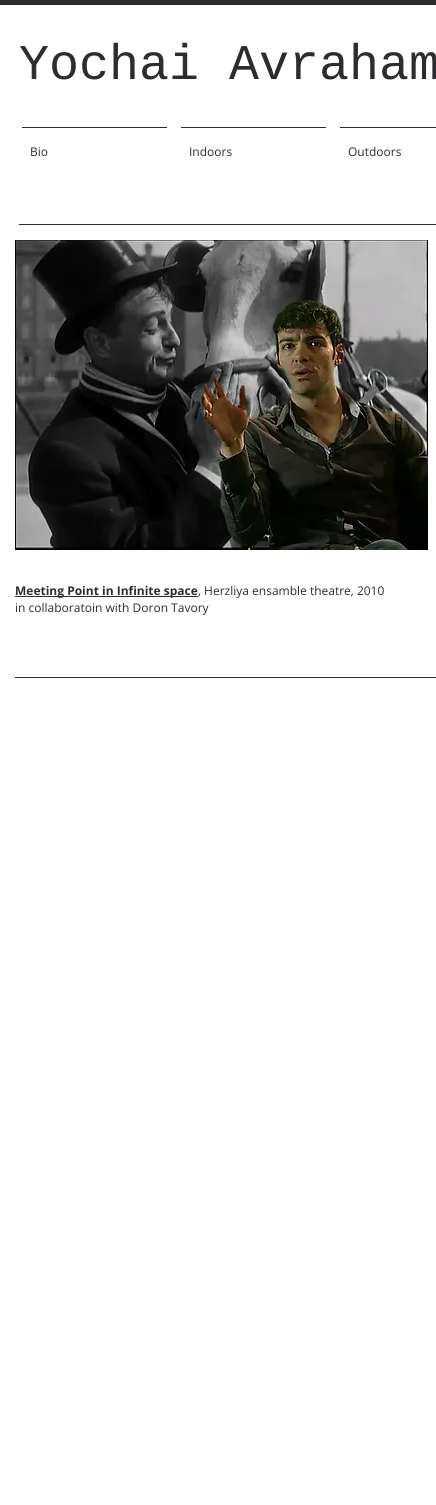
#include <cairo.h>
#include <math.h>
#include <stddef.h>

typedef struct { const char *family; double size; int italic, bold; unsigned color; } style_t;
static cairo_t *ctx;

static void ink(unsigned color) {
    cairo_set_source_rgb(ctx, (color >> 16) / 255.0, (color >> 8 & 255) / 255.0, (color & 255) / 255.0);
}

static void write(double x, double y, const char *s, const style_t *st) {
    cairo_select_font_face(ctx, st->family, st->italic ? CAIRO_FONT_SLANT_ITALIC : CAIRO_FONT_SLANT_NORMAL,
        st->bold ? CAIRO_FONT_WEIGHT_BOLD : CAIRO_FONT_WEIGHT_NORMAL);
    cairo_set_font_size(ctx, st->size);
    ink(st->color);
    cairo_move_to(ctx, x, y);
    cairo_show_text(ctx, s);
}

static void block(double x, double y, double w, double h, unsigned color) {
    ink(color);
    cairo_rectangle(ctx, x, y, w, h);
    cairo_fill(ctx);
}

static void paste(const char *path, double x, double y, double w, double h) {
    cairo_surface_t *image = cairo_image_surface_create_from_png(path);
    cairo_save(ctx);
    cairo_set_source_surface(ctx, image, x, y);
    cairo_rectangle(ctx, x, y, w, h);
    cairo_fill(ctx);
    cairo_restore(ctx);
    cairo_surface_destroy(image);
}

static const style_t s1 = {"Liberation Mono", 50, 0, 0, 0x2d2d2f};
static const style_t s2 = {"Open Sans", 12, 0, 0, 0x2d2d2f};
static const style_t s3 = {"Open Sans", 12, 0, 1, 0x2d2d2f};

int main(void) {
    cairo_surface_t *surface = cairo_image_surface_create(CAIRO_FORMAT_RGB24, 436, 1505);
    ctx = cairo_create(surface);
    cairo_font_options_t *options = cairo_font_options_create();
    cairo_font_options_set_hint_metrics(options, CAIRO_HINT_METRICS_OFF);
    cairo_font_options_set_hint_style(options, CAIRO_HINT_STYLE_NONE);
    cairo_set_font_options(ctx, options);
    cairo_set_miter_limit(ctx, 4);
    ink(0xffffff);
    cairo_paint(ctx);
    block(0, 0, 436, 5, 0x2d2d2f);
    write(19, 79, "Yochai Avraham", &s1);
    block(22, 127, 145, 1, 0x2d2d2f);
    write(30, 156, "Bio", &s2);
    block(181, 127, 145, 1, 0x2d2d2f);
    write(189, 156, "Indoors", &s2);
    block(340, 127, 96, 1, 0x2d2d2f);
    write(348, 156, "Outdoors", &s2);
    block(19, 224, 417, 1, 0x2d2d2f);
    paste("pic1.png", 15, 240, 413, 310);
    block(15, 596, 183, 1, 0x2d2d2f);
    write(15, 595, "Meeting Point in Infinite space", &s3);
    write(198, 595, ", Herzliya ensamble theatre, 2010", &s2);
    write(15, 612, "in collaboratoin with Doron Tavory", &s2);
    block(15, 677, 421, 1, 0x2d2d2f);
    cairo_surface_write_to_png(surface, "screenshot.png");
    cairo_font_options_destroy(options);
    cairo_destroy(ctx);
    cairo_surface_destroy(surface);
    return 0;
}
